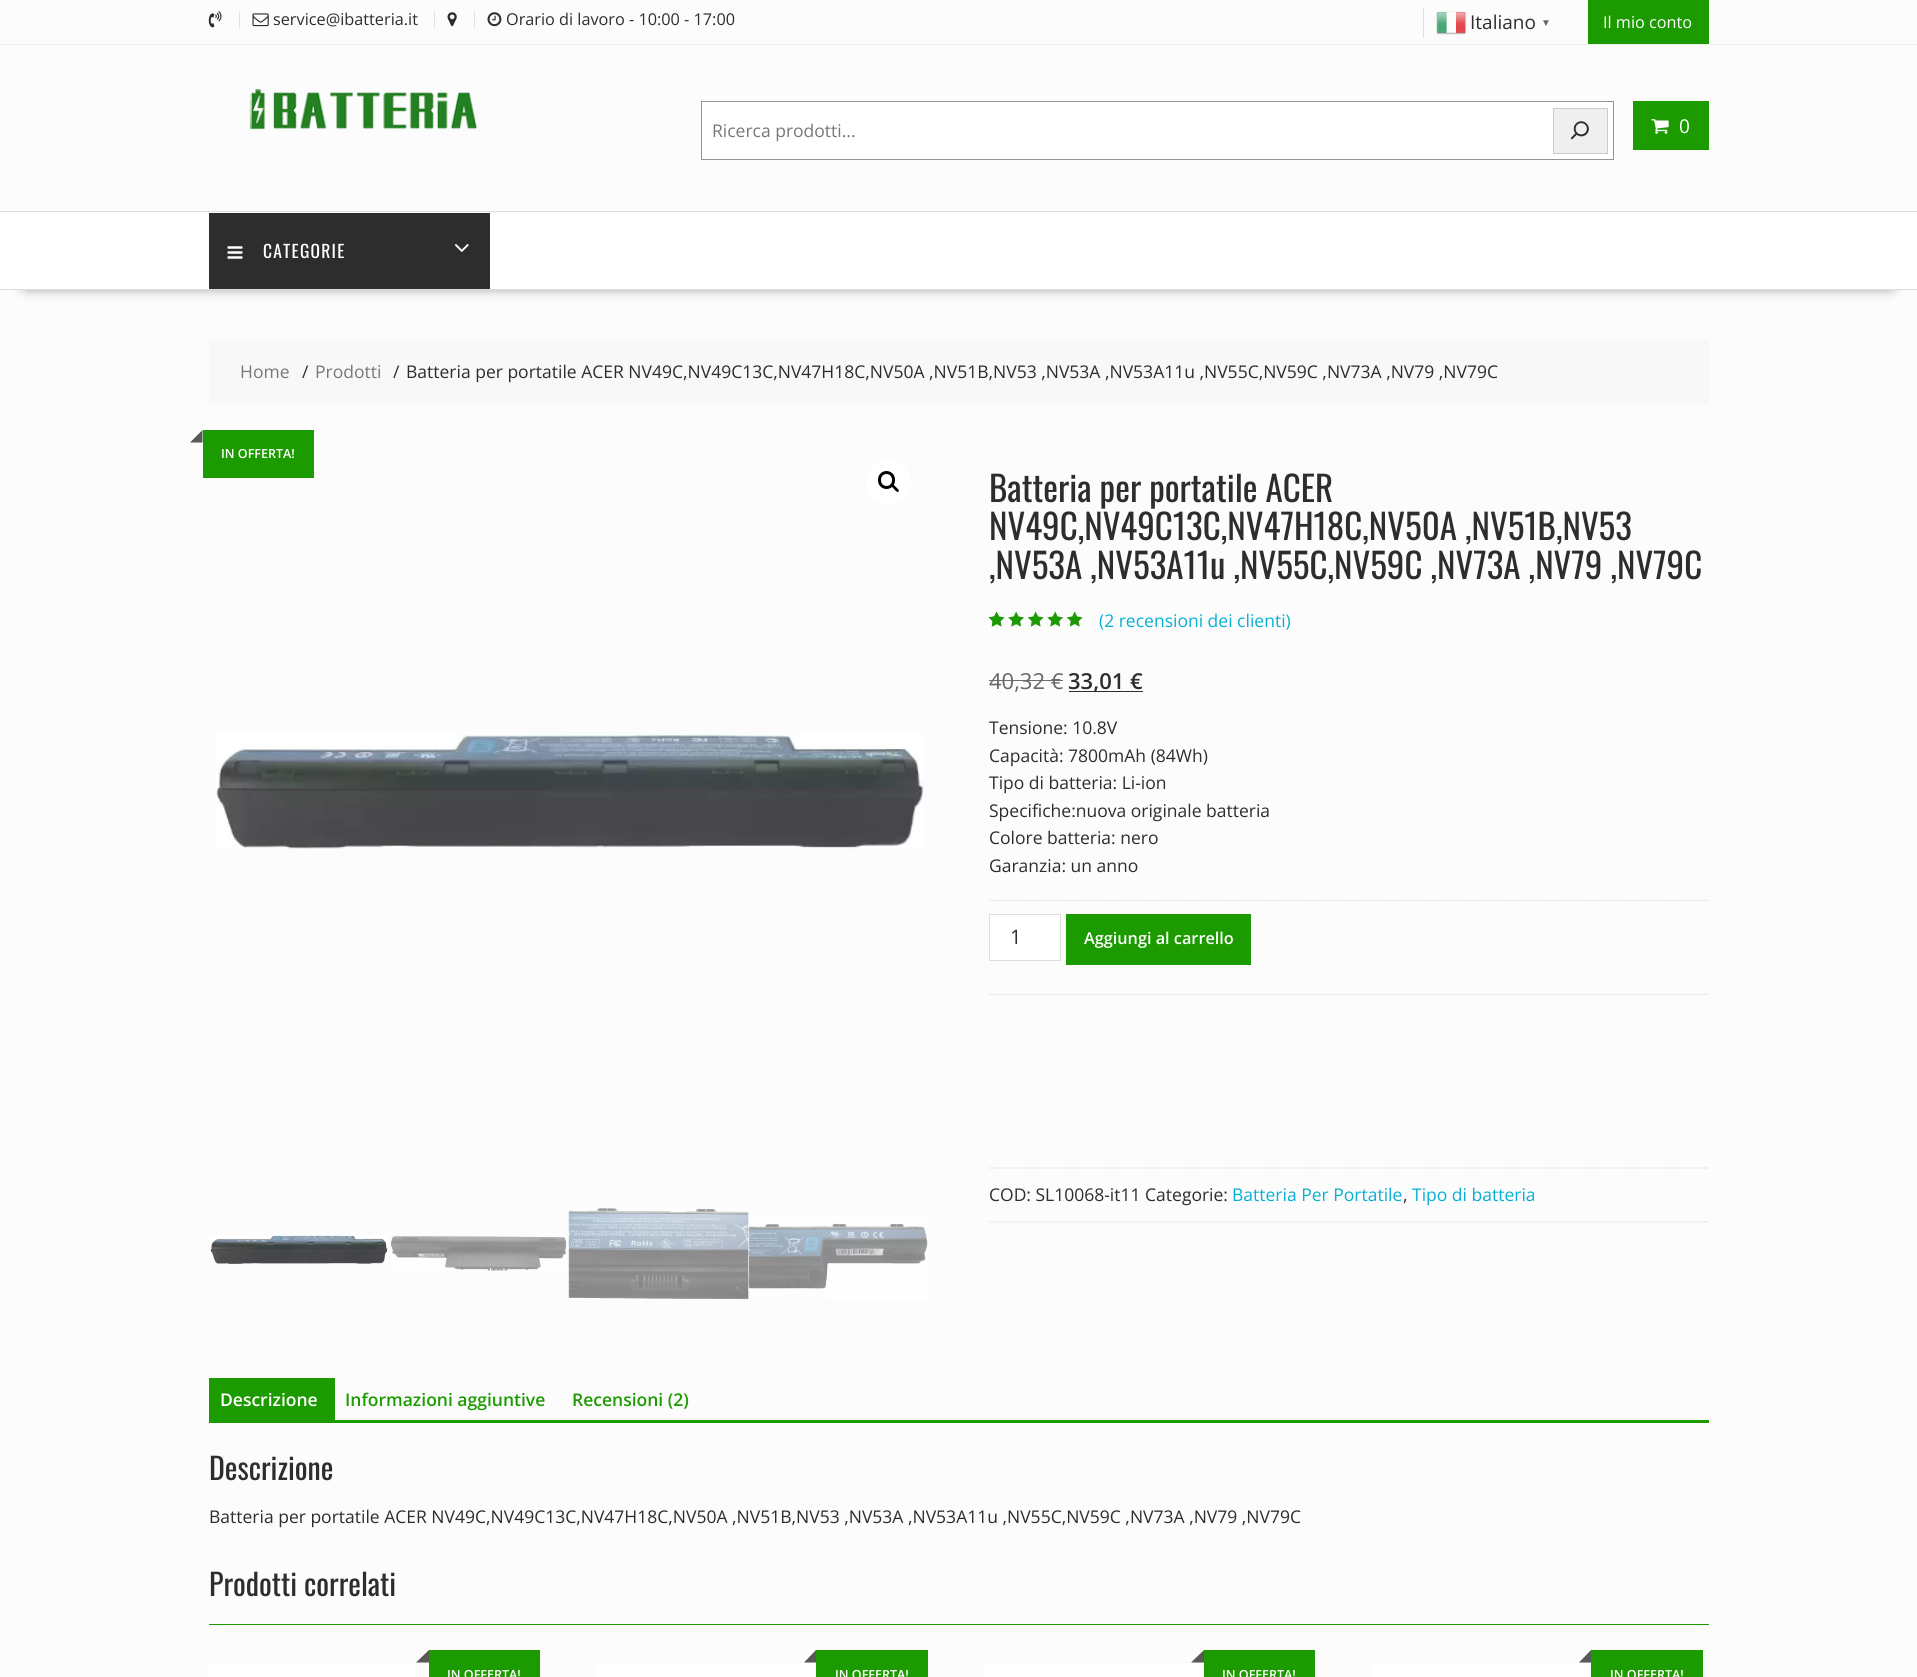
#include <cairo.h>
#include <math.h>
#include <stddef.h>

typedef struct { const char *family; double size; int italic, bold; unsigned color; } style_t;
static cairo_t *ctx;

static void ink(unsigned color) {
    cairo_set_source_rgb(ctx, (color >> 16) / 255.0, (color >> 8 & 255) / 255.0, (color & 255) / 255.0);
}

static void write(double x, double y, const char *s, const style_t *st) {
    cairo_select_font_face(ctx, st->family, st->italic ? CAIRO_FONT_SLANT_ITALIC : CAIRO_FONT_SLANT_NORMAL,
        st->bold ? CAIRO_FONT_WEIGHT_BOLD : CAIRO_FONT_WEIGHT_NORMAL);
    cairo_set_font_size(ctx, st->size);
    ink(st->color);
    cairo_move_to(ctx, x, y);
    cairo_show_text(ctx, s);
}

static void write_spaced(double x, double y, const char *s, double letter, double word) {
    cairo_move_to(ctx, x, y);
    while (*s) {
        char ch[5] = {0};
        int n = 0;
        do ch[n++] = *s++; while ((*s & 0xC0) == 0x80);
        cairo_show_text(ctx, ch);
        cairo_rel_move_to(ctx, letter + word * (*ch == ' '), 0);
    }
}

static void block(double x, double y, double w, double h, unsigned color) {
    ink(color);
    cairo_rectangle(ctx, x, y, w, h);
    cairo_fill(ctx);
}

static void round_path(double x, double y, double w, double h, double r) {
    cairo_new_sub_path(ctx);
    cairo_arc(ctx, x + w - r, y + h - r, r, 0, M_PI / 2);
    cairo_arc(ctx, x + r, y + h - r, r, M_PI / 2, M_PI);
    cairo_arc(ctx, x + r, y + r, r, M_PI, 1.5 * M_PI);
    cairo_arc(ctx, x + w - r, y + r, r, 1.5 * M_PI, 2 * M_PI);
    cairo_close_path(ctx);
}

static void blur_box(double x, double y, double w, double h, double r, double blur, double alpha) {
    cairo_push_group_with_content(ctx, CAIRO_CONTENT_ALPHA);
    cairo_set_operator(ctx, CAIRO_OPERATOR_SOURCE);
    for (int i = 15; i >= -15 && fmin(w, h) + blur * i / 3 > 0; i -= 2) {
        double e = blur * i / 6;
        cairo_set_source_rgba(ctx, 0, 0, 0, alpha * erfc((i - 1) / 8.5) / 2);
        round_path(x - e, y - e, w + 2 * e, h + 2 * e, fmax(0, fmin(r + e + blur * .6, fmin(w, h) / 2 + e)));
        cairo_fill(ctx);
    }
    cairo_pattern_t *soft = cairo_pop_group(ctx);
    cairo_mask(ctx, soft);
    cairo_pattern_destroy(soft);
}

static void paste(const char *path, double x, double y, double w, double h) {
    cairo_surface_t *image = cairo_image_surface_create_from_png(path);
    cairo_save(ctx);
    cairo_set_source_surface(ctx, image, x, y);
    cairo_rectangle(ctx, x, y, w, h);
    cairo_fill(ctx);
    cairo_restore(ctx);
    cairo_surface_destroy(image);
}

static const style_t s1 = {"Open Sans", 16.25, 0, 0, 0x2d2d2d};
static const style_t s2 = {"Open Sans", 19, 0, 0, 0x2d2d2d};
static const style_t s3 = {"Liberation Sans", 10, 0, 1, 0x666666};
static const style_t s4 = {"Open Sans", 16.25, 0, 0, 0xffffff};
static const style_t s5 = {"Open Sans", 17.5, 0, 0, 0x777777};
static const style_t s6 = {"Open Sans", 19, 0, 0, 0xffffff};
static const style_t s7 = {"Open Sans", 17.5, 0, 0, 0x2d2d2d};
static const style_t s8 = {"Open Sans SemiBold", 12.5, 0, 0, 0xffffff};
static const style_t s9 = {"Oswald", 35, 0, 0, 0x2d2d2d};
static const style_t s10 = {"Open Sans", 17.5, 0, 0, 0x07afd4};
static const style_t s11 = {"Open Sans", 22, 0, 0, 0x666666};
static const style_t s12 = {"Open Sans SemiBold", 22, 0, 0, 0x2d2d2d};
static const style_t s13 = {"Open Sans", 20, 0, 0, 0x2d2d2d};
static const style_t s14 = {"Open Sans SemiBold", 16.25, 0, 0, 0xffffff};
static const style_t s15 = {"Open Sans SemiBold", 17.5, 0, 0, 0xffffff};
static const style_t s16 = {"Open Sans SemiBold", 17.5, 0, 0, 0x1c9b00};
static const style_t s17 = {"Oswald", 30, 0, 0, 0x2d2d2d};

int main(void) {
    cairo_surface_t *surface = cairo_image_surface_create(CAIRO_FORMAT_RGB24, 1917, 1677);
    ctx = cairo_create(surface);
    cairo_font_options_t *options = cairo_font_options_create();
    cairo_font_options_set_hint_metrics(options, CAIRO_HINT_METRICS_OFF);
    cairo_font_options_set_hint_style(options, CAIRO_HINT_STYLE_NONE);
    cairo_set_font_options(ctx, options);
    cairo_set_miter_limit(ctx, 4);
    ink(0xfcfcfc);
    cairo_paint(ctx);
    block(0, 44, 1917, 1, 0xeeeeee);
    paste("pic1.png", 208, 11, 14, 17);
    block(239, 11, 1, 17, 0xe2e2e4);
    paste("pic2.png", 252, 13, 17, 14);
    write(273, 25, "service@ibatteria.it", &s1);
    block(434, 11, 1, 17, 0xe2e2e4);
    paste("pic3.png", 447, 12, 10, 15);
    block(474, 11, 1, 17, 0xe2e2e4);
    paste("pic4.png", 487, 12, 15, 15);
    write(506, 25, "Orario di lavoro - 10:00 - 17:00", &s1);
    block(1423, 8, 1, 30, 0xe2e2e4);
    paste("pic5.png", 1436, 11, 31, 24);
    write(1470, 29, "Italiano", &s2);
    write(1541, 26, "▼", &s3);
    block(1588, 0, 121, 44, 0x1c9b00);
    write(1603, 28, "Il mio conto", &s4);
    paste("pic6.png", 249, 89, 229, 41);
    cairo_rectangle(ctx, 701.5, 101.5, 912, 58);
    cairo_fill_preserve(ctx);
    ink(0x949494);
    cairo_set_line_width(ctx, 1);
    cairo_stroke(ctx);
    write(712, 137, "Ricerca prodotti...", &s5);
    ink(0xefefef);
    cairo_rectangle(ctx, 1553.5, 108.5, 54, 45);
    cairo_fill_preserve(ctx);
    ink(0xcccccc);
    cairo_stroke(ctx);
    paste("pic7.png", 1570, 121, 19, 19);
    block(1633, 101, 76, 49, 0x1c9b00);
    paste("pic8.png", 1651, 119, 18, 15);
    write(1679, 133, "0", &s6);
    ink(0x000000);
    blur_box(26, 259, 1865, 26, 0, 7, 0.75);
    block(0, 212, 1917, 77, 0xffffff);
    block(0, 211, 1917, 1, 0xdedede);
    block(0, 289, 1917, 1, 0xdedede);
    block(209, 213, 281, 76, 0x2d2d2d);
    paste("pic9.png", 227, 246, 16, 13);
    cairo_select_font_face(ctx, "Oswald", CAIRO_FONT_SLANT_NORMAL, CAIRO_FONT_WEIGHT_NORMAL);
    cairo_set_font_size(ctx, 17.5);
    ink(0xffffff);
    write_spaced(263, 258, "CATEGORIE", 1.25, 0);
    paste("pic10.png", 454, 244, 15, 8);
    block(209, 340, 1500, 65, 0xf8f8f8);
    write(240, 378, "Home", &s5);
    write(302, 378, "/", &s7);
    write(315, 378, "Prodotti", &s5);
    write(393, 378, "/", &s7);
    write(406, 378, "Batteria per portatile ACER NV49C,NV49C13C,NV47H18C,NV50A ,NV51B,NV53 ,NV53A ,NV53A11u ,NV55C,NV59C ,NV73A ,NV79 ,NV79C", &s7);
    block(203, 430, 111, 48, 0x1c9b00);
    ink(0x565955);
    cairo_new_path(ctx);
    cairo_move_to(ctx, 202.5, 430);
    cairo_line_to(ctx, 202.5, 442.5);
    cairo_line_to(ctx, 190, 442.5);
    cairo_close_path(ctx);
    cairo_fill(ctx);
    write(221, 458, "IN OFFERTA!", &s8);
    cairo_new_path(ctx);
    cairo_arc(ctx, 888.5, 482.5, 22.5, 0, 2 * M_PI);
    cairo_fill(ctx);
    round_path(879.5, 472.5, 14, 15, 7);
    ink(0x000000);
    cairo_set_line_width(ctx, 3);
    cairo_stroke(ctx);
    cairo_new_path(ctx);
    cairo_move_to(ctx, 891.5, 484.5);
    cairo_curve_to(ctx, 893, 483, 895, 486.5, 896, 487);
    cairo_curve_to(ctx, 896.5, 488, 900, 490, 898.5, 491.5);
    cairo_curve_to(ctx, 897, 493, 895, 490, 894, 489);
    cairo_curve_to(ctx, 893.5, 488, 890, 486, 891.5, 484.5);
    cairo_close_path(ctx);
    cairo_fill(ctx);
    paste("pic11.png", 216, 734, 708, 115);
    paste("pic12.png", 210, 1235, 178, 29);
    paste("pic13.png", 391, 1236, 176, 35);
    paste("pic14.png", 568, 1208, 181, 92);
    paste("pic15.png", 748, 1214, 180, 85);
    write(989, 502, "Batteria per portatile ACER", &s9);
    write(989, 540, "NV49C,NV49C13C,NV47H18C,NV50A ,NV51B,NV53", &s9);
    write(989, 579, ",NV53A ,NV53A11u ,NV55C,NV59C ,NV73A ,NV79 ,NV79C", &s9);
    paste("pic18.png", 989, 612, 94, 15);
    paste("pic16.png", 989, 611, 94, 16);
    paste("pic17.png", 989, 613, 7, 14);
    write(1099, 627, "(2 recensioni dei clienti)", &s10);
    write(989, 689, "40,32 €", &s11);
    block(989, 680, 74, 1, 0x6b6b6b);
    block(1069, 691, 74, 1, 0x2d2d2d);
    write(1068, 689, "33,01 €", &s12);
    write(989, 734, "Tensione: 10.8V", &s7);
    write(989, 762, "Capacità: 7800mAh (84Wh)", &s7);
    write(989, 789, "Tipo di batteria: Li-ion", &s7);
    write(989, 817, "Specifiche:nuova originale batteria", &s7);
    write(989, 844, "Colore batteria: nero", &s7);
    write(989, 872, "Garanzia: un anno", &s7);
    cairo_new_path(ctx);
    cairo_move_to(ctx, 989, 900.5);
    cairo_line_to(ctx, 1709, 900.5);
    ink(0xdddddd);
    cairo_set_line_width(ctx, 1.2);
    cairo_set_dash(ctx, (double[]){1.25, 1.25}, 2, 0);
    cairo_stroke(ctx);
    cairo_new_path(ctx);
    cairo_move_to(ctx, 989, 994.5);
    cairo_line_to(ctx, 1709, 994.5);
    cairo_stroke(ctx);
    ink(0xffffff);
    cairo_rectangle(ctx, 989.5, 914.5, 71, 46);
    cairo_fill_preserve(ctx);
    ink(0xdddddd);
    cairo_set_line_width(ctx, 1);
    cairo_set_dash(ctx, NULL, 0, 0);
    cairo_stroke(ctx);
    write(1010, 944, "1", &s13);
    block(1066, 914, 185, 51, 0x1c9b00);
    write(1084, 944, "Aggiungi al carrello", &s14);
    cairo_new_path(ctx);
    cairo_move_to(ctx, 989, 1168);
    cairo_line_to(ctx, 1709, 1168);
    ink(0xdddddd);
    cairo_set_line_width(ctx, 1.2);
    cairo_set_dash(ctx, (double[]){1.25, 1.25}, 2, 0);
    cairo_stroke(ctx);
    cairo_new_path(ctx);
    cairo_move_to(ctx, 989, 1222);
    cairo_line_to(ctx, 1709, 1222);
    cairo_stroke(ctx);
    write(989, 1201, "COD: SL10068-it11 Categorie:", &s7);
    write(1232, 1201, "Batteria Per Portatile", &s10);
    write(1403, 1201, ",", &s7);
    write(1412, 1201, "Tipo di batteria", &s10);
    block(209, 1378, 126, 45, 0x1c9b00);
    write(220, 1406, "Descrizione", &s15);
    write(345, 1406, "Informazioni aggiuntive", &s16);
    write(572, 1406, "Recensioni (2)", &s16);
    block(335, 1420, 1374, 3, 0x1c9b00);
    write(209, 1480, "Descrizione", &s17);
    write(209, 1523, "Batteria per portatile ACER NV49C,NV49C13C,NV47H18C,NV50A ,NV51B,NV53 ,NV53A ,NV53A11u ,NV55C,NV59C ,NV73A ,NV79 ,NV79C", &s7);
    block(209, 1624, 1500, 1, 0x1c9b00);
    write(209, 1596, "Prodotti correlati", &s17);
    block(209, 1663, 220, 14, 0xffffff);
    block(429, 1650, 111, 27, 0x1c9b00);
    ink(0x565955);
    cairo_new_path(ctx);
    cairo_move_to(ctx, 429, 1650);
    cairo_line_to(ctx, 429, 1662.5);
    cairo_line_to(ctx, 416, 1662.5);
    cairo_close_path(ctx);
    cairo_fill(ctx);
    write(447, 1679, "IN OFFERTA!", &s8);
    block(596, 1663, 220, 14, 0xffffff);
    block(816, 1650, 112, 27, 0x1c9b00);
    ink(0x565955);
    cairo_new_path(ctx);
    cairo_move_to(ctx, 816, 1650);
    cairo_line_to(ctx, 816, 1662.5);
    cairo_line_to(ctx, 804, 1662.5);
    cairo_close_path(ctx);
    cairo_fill(ctx);
    write(835, 1679, "IN OFFERTA!", &s8);
    block(984, 1663, 220, 14, 0xffffff);
    block(1204, 1650, 111, 27, 0x1c9b00);
    ink(0x565955);
    cairo_new_path(ctx);
    cairo_move_to(ctx, 1204, 1650);
    cairo_line_to(ctx, 1204, 1662.5);
    cairo_line_to(ctx, 1191, 1662.5);
    cairo_close_path(ctx);
    cairo_fill(ctx);
    write(1222, 1679, "IN OFFERTA!", &s8);
    block(1373, 1663, 218, 14, 0xffffff);
    block(1591, 1650, 112, 27, 0x1c9b00);
    ink(0x565955);
    cairo_new_path(ctx);
    cairo_move_to(ctx, 1591, 1650);
    cairo_line_to(ctx, 1591, 1662.5);
    cairo_line_to(ctx, 1579, 1662.5);
    cairo_close_path(ctx);
    cairo_fill(ctx);
    write(1610, 1679, "IN OFFERTA!", &s8);
    cairo_surface_write_to_png(surface, "screenshot.png");
    cairo_font_options_destroy(options);
    cairo_destroy(ctx);
    cairo_surface_destroy(surface);
    return 0;
}
